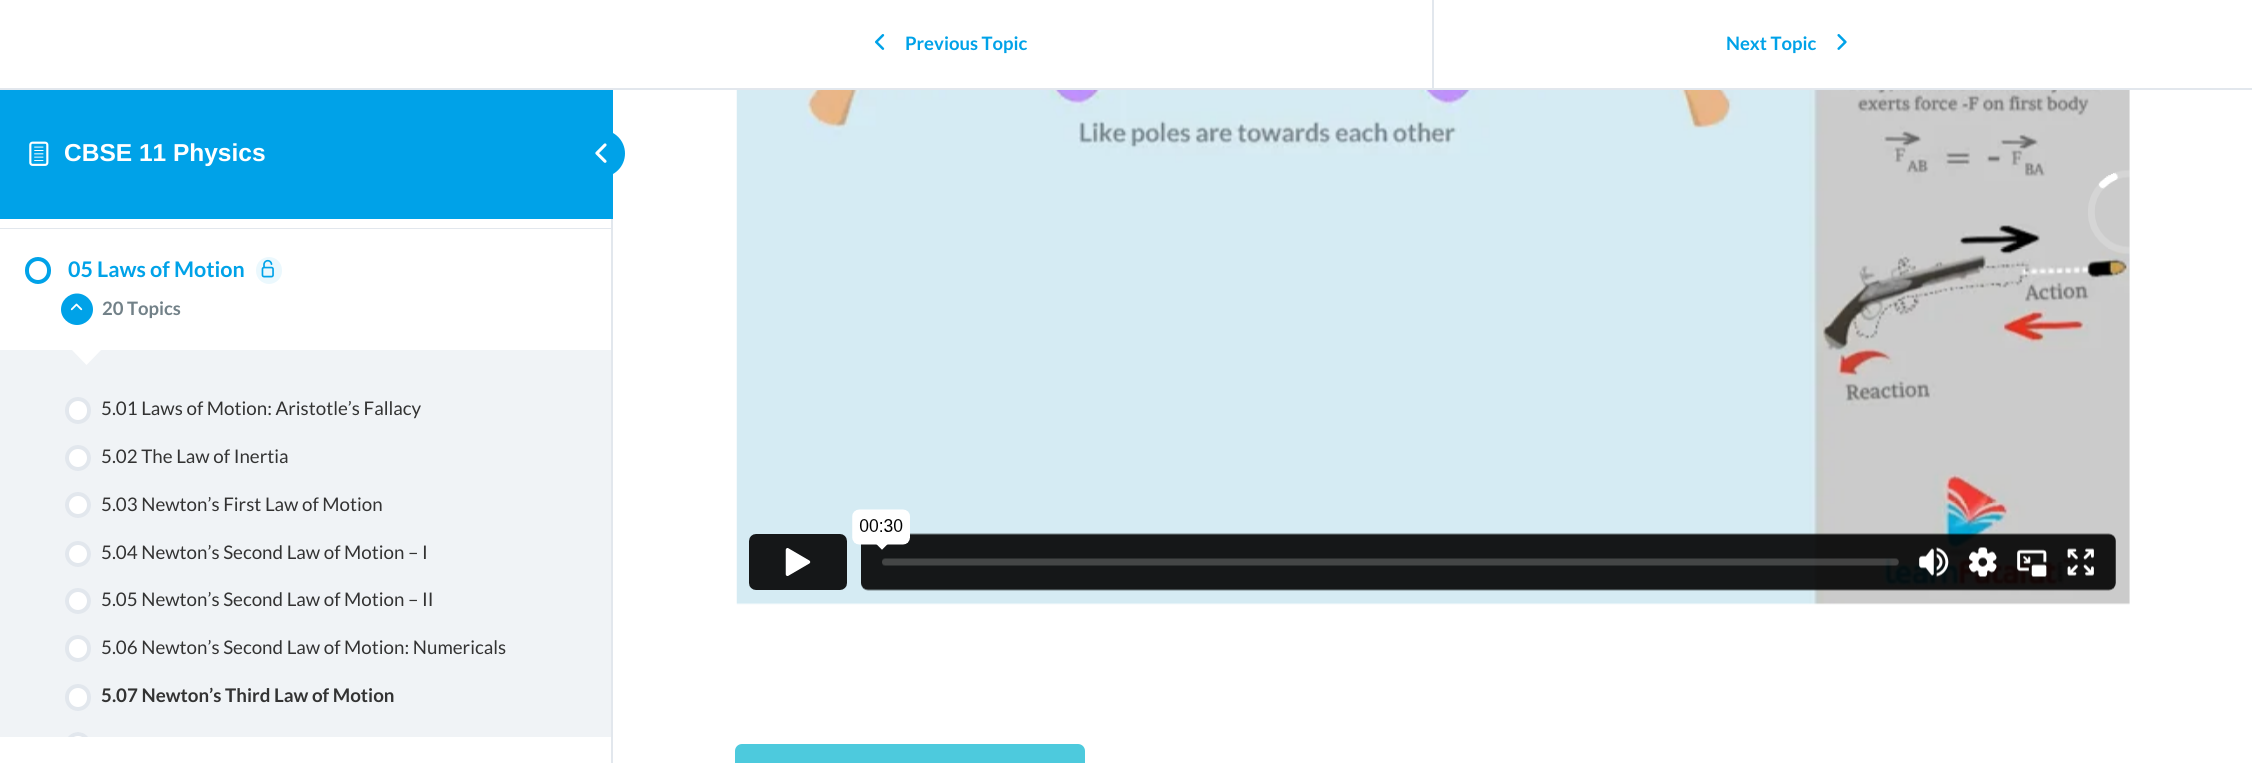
#include <cairo.h>
#include <math.h>
#include <stddef.h>

typedef struct { const char *family; double size; int italic, bold; unsigned color; } style_t;
static cairo_t *ctx;

static void ink(unsigned color) {
    cairo_set_source_rgb(ctx, (color >> 16) / 255.0, (color >> 8 & 255) / 255.0, (color & 255) / 255.0);
}

static void write(double x, double y, const char *s, const style_t *st) {
    cairo_select_font_face(ctx, st->family, st->italic ? CAIRO_FONT_SLANT_ITALIC : CAIRO_FONT_SLANT_NORMAL,
        st->bold ? CAIRO_FONT_WEIGHT_BOLD : CAIRO_FONT_WEIGHT_NORMAL);
    cairo_set_font_size(ctx, st->size);
    ink(st->color);
    cairo_move_to(ctx, x, y);
    cairo_show_text(ctx, s);
}

static void block(double x, double y, double w, double h, unsigned color) {
    ink(color);
    cairo_rectangle(ctx, x, y, w, h);
    cairo_fill(ctx);
}

static void round_path(double x, double y, double w, double h, double r) {
    cairo_new_sub_path(ctx);
    cairo_arc(ctx, x + w - r, y + h - r, r, 0, M_PI / 2);
    cairo_arc(ctx, x + r, y + h - r, r, M_PI / 2, M_PI);
    cairo_arc(ctx, x + r, y + r, r, M_PI, 1.5 * M_PI);
    cairo_arc(ctx, x + w - r, y + r, r, 1.5 * M_PI, 2 * M_PI);
    cairo_close_path(ctx);
}

static void paste(const char *path, double x, double y, double w, double h) {
    cairo_surface_t *image = cairo_image_surface_create_from_png(path);
    cairo_save(ctx);
    cairo_set_source_surface(ctx, image, x, y);
    cairo_rectangle(ctx, x, y, w, h);
    cairo_fill(ctx);
    cairo_restore(ctx);
    cairo_surface_destroy(image);
}

static const style_t s1 = {"Lato", 18.5, 0, 1, 0x00a2e8};
static const style_t s2 = {"Arimo", 24.5, 0, 1, 0xffffff};
static const style_t s3 = {"Lato", 21.5, 0, 1, 0x00a2e8};
static const style_t s4 = {"Lato", 18.5, 0, 1, 0x728188};
static const style_t s5 = {"Lato", 18.75, 0, 0, 0x333333};
static const style_t s6 = {"Lato", 18.75, 0, 1, 0x333333};

int main(void) {
    cairo_surface_t *surface = cairo_image_surface_create(CAIRO_FORMAT_RGB24, 2252, 763);
    ctx = cairo_create(surface);
    cairo_font_options_t *options = cairo_font_options_create();
    cairo_font_options_set_hint_metrics(options, CAIRO_HINT_METRICS_OFF);
    cairo_font_options_set_hint_style(options, CAIRO_HINT_STYLE_NONE);
    cairo_set_font_options(ctx, options);
    cairo_set_miter_limit(ctx, 4);
    ink(0xffffff);
    cairo_paint(ctx);
    block(0, 88, 2252, 2, 0xe2e7ed);
    block(1432, 0, 2, 88, 0xe2e7ed);
    paste("pic1.png", 875, 34, 10, 16);
    write(905, 50, "Previous Topic", &s1);
    write(1726, 50, "Next Topic", &s1);
    paste("pic2.png", 1837, 34, 10, 16);
    paste("pic3.png", 736, 90, 1394, 515);
    ink(0x4dcadd);
    round_path(735, 744, 350, 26, 7);
    cairo_fill(ctx);
    block(611, 219, 2, 544, 0xe2e7ed);
    block(0, 90, 613, 129, 0x00a2e8);
    paste("pic4.png", 29, 141, 20, 25);
    write(64, 161, "CBSE 11 Physics", &s2);
    ink(0x00a2e8);
    cairo_new_path(ctx);
    cairo_arc(ctx, 601.5, 153.5, 23.5, 0, 2 * M_PI);
    cairo_fill(ctx);
    paste("pic5.png", 595, 143, 12, 20);
    block(0, 228, 611, 1, 0xe2e7ed);
    round_path(27, 259, 22, 23, 11);
    ink(0x00a2e8);
    cairo_set_line_width(ctx, 4);
    cairo_stroke(ctx);
    write(68, 277, "05 Laws of Motion", &s3);
    ink(0xebf8fd);
    round_path(256, 257, 26, 27, 13);
    cairo_fill(ctx);
    paste("pic6.png", 261, 259, 13, 19);
    ink(0x00a2e8);
    cairo_new_path(ctx);
    cairo_move_to(ctx, 77, 325);
    cairo_curve_to(ctx, 68.5, 325, 61, 318, 61, 309.5);
    cairo_curve_to(ctx, 61, 300.5, 68.5, 293.5, 77, 293.5);
    cairo_curve_to(ctx, 85.5, 293.5, 93, 300.5, 93, 309.5);
    cairo_curve_to(ctx, 93, 318, 85.5, 325, 77, 325);
    cairo_close_path(ctx);
    cairo_fill(ctx);
    paste("pic7.png", 70, 303, 13, 8);
    write(102, 315, "20 Topics", &s4);
    block(0, 350, 611, 387, 0xf0f3f6);
    cairo_save(ctx);
    cairo_rectangle(ctx, 0, 350, 611, 387);
    cairo_clip(ctx);
    ink(0xffffff);
    cairo_new_path(ctx);
    cairo_move_to(ctx, 70.5, 348.5);
    cairo_line_to(ctx, 86.5, 332.5);
    cairo_line_to(ctx, 102.5, 348.5);
    cairo_line_to(ctx, 86.5, 365);
    cairo_close_path(ctx);
    cairo_fill(ctx);
    cairo_restore(ctx);
    ink(0xffffff);
    round_path(67, 399, 22, 23, 11);
    cairo_fill_preserve(ctx);
    ink(0xe2e7ed);
    cairo_stroke(ctx);
    write(101, 415, "5.01 Laws of Motion: Aristotle’s Fallacy", &s5);
    ink(0xffffff);
    cairo_new_path(ctx);
    cairo_arc(ctx, 78, 458, 11, 0, 2 * M_PI);
    cairo_fill_preserve(ctx);
    ink(0xe2e7ed);
    cairo_stroke(ctx);
    write(101, 463, "5.02 The Law of Inertia", &s5);
    ink(0xffffff);
    cairo_new_path(ctx);
    cairo_arc(ctx, 78, 505, 11, 0, 2 * M_PI);
    cairo_fill_preserve(ctx);
    ink(0xe2e7ed);
    cairo_stroke(ctx);
    write(101, 511, "5.03 Newton’s First Law of Motion", &s5);
    ink(0xffffff);
    cairo_new_path(ctx);
    cairo_arc(ctx, 78, 554, 11, 0, 2 * M_PI);
    cairo_fill_preserve(ctx);
    ink(0xe2e7ed);
    cairo_stroke(ctx);
    write(101, 559, "5.04 Newton’s Second Law of Motion – I", &s5);
    ink(0xffffff);
    cairo_new_path(ctx);
    cairo_arc(ctx, 78, 601, 11, 0, 2 * M_PI);
    cairo_fill_preserve(ctx);
    ink(0xe2e7ed);
    cairo_stroke(ctx);
    write(101, 606, "5.05 Newton’s Second Law of Motion – II", &s5);
    ink(0xffffff);
    round_path(67, 637, 22, 23, 11);
    cairo_fill_preserve(ctx);
    ink(0xe2e7ed);
    cairo_stroke(ctx);
    write(101, 654, "5.06 Newton’s Second Law of Motion: Numericals", &s5);
    ink(0xffffff);
    round_path(67, 686, 22, 23, 11);
    cairo_fill_preserve(ctx);
    ink(0xe2e7ed);
    cairo_stroke(ctx);
    write(101, 702, "5.07 Newton’s Third Law of Motion", &s6);
    ink(0xffffff);
    cairo_new_path(ctx);
    cairo_move_to(ctx, 78, 732);
    cairo_curve_to(ctx, 85, 732, 91, 738, 91, 745);
    cairo_line_to(ctx, 91, 737);
    cairo_line_to(ctx, 65, 737);
    cairo_line_to(ctx, 65, 745);
    cairo_curve_to(ctx, 65, 738, 71, 732, 78, 732);
    cairo_close_path(ctx);
    cairo_fill(ctx);
    cairo_save(ctx);
    cairo_rectangle(ctx, 25, 375, 561, 362);
    cairo_clip(ctx);
    cairo_arc(ctx, 78, 745, 11, 0, 2 * M_PI);
    ink(0xe2e7ed);
    cairo_stroke(ctx);
    cairo_restore(ctx);
    cairo_surface_write_to_png(surface, "screenshot.png");
    cairo_font_options_destroy(options);
    cairo_destroy(ctx);
    cairo_surface_destroy(surface);
    return 0;
}
